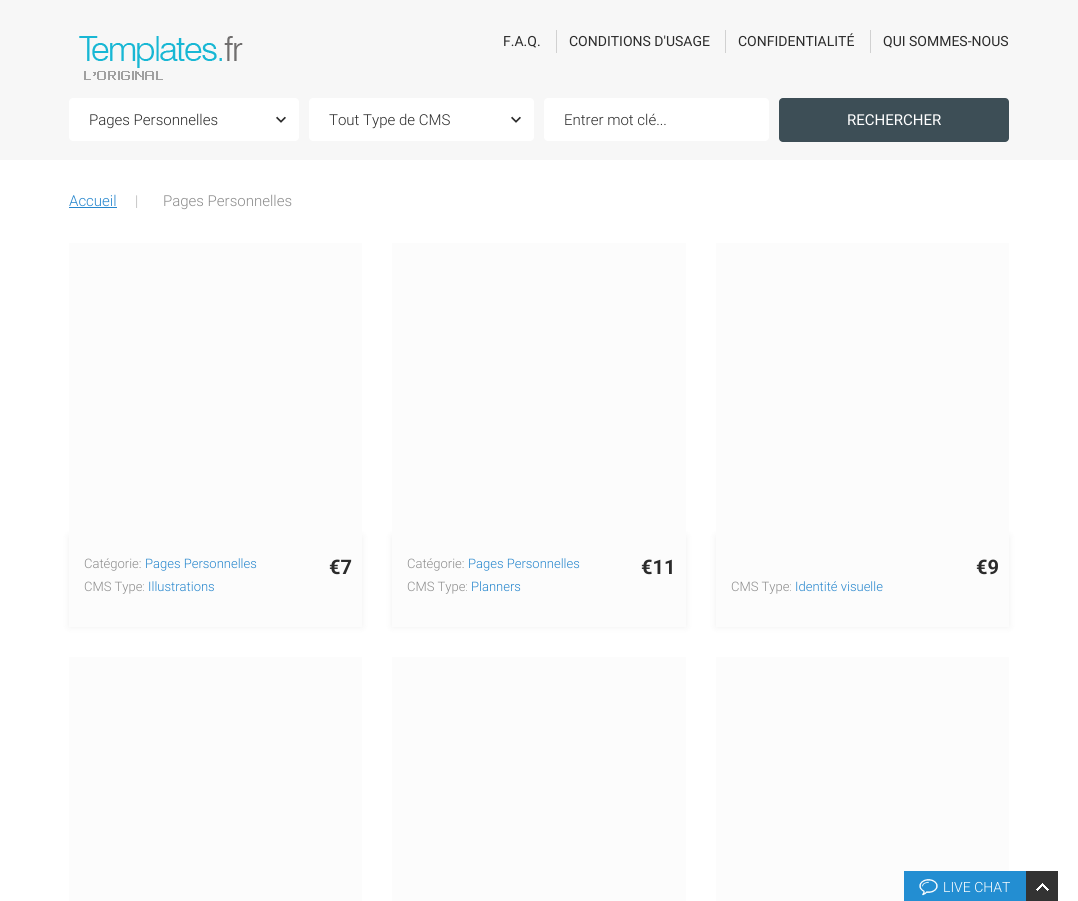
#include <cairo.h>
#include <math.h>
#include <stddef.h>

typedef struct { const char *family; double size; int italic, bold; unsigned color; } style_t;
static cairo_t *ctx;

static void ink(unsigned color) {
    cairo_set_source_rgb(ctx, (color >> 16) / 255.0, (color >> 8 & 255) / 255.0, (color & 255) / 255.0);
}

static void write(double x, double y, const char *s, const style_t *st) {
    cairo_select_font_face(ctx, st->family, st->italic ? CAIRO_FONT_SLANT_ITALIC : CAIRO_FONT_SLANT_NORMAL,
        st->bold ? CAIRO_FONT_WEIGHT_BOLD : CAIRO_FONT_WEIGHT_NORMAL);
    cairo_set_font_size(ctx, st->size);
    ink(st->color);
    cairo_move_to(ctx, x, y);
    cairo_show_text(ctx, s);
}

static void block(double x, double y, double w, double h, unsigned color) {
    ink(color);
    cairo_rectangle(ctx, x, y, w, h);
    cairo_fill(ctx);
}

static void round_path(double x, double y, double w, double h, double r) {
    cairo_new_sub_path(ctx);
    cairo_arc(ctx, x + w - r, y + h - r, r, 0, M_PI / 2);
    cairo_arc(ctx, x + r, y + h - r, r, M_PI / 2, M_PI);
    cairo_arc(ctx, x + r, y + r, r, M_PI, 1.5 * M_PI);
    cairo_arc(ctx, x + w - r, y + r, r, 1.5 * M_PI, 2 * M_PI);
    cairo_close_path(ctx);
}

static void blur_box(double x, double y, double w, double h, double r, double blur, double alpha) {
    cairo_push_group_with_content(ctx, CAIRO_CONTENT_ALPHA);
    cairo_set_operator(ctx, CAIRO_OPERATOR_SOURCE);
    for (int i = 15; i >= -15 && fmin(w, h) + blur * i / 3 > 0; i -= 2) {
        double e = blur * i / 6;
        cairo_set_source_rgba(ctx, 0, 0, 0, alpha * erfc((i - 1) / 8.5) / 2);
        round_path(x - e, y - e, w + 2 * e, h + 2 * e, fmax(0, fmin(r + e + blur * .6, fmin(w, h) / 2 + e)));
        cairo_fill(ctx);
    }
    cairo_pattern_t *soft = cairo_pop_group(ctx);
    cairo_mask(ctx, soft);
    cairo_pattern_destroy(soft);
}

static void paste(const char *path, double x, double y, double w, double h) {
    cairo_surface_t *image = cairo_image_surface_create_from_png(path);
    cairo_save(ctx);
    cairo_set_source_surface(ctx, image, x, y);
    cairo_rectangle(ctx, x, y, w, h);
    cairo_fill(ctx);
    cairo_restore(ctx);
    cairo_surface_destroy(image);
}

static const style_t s1 = {"Roboto", 14, 0, 0, 0x2b2b2b};
static const style_t s2 = {"Roboto Light", 15, 0, 0, 0x2b2b2b};
static const style_t s3 = {"Roboto", 15, 0, 0, 0xffffff};
static const style_t s4 = {"Roboto Light", 15, 0, 0, 0x2686cd};
static const style_t s5 = {"Roboto Light", 15, 0, 0, 0xb4b4b4};
static const style_t s6 = {"Roboto Light", 15, 0, 0, 0x8c8c8c};
static const style_t s7 = {"Roboto Light", 13, 0, 0, 0x8c8c8c};
static const style_t s8 = {"Roboto Light", 13, 0, 0, 0x2686cd};
static const style_t s9 = {"Roboto", 20, 0, 1, 0x2b2b2b};
static const style_t s10 = {"Roboto Light", 14, 0, 0, 0xffffff};

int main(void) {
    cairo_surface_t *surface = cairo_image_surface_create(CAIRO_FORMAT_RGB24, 1078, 901);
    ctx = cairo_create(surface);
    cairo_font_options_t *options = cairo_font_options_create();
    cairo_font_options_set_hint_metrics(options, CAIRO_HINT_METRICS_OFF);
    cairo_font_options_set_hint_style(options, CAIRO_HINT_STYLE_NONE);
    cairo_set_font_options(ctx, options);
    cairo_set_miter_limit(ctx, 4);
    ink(0xf7f7f7);
    cairo_paint(ctx);
    paste("pic1.png", 79, 36, 164, 44);
    write(503, 46, "F.A.Q.", &s1);
    block(556, 30, 1, 23, 0xd1d1d1);
    write(569, 46, "CONDITIONS D'USAGE", &s1);
    block(725, 30, 1, 23, 0xd1d1d1);
    write(738, 46, "CONFIDENTIALITÉ", &s1);
    block(870, 30, 1, 23, 0xd1d1d1);
    write(883, 46, "QUI SOMMES-NOUS", &s1);
    ink(0xffffff);
    round_path(69, 98, 230, 43, 4);
    cairo_fill(ctx);
    paste("pic2.png", 276, 116, 10, 7);
    write(89, 125, "Pages Personnelles", &s2);
    ink(0xffffff);
    round_path(309, 98, 225, 43, 4);
    cairo_fill(ctx);
    paste("pic2.png", 511, 116, 10, 7);
    write(329, 125, "Tout Type de CMS", &s2);
    ink(0xffffff);
    round_path(544, 98, 225, 43, 4);
    cairo_fill(ctx);
    write(564, 125, "Entrer mot clé...", &s2);
    ink(0x3d4e56);
    round_path(779, 98, 230, 44, 4);
    cairo_fill(ctx);
    write(847, 125, "RECHERCHER", &s3);
    block(0, 160, 1078, 741, 0xffffff);
    write(69, 206, "Accueil", &s4);
    block(69, 207, 48, 1, 0x2686cd);
    write(135, 206, "|", &s5);
    write(163, 206, "Pages Personnelles", &s6);
    ink(0x000000);
    blur_box(69, 536, 293, 91, 0, 4, 0.06);
    block(69, 243, 293, 384, 0xfcfcfc);
    write(84, 568, "Catégorie:", &s7);
    write(145, 568, "Pages Personnelles", &s8);
    write(329, 574, "€7", &s9);
    write(84, 591, "CMS Type:", &s7);
    write(148, 591, "Illustrations", &s8);
    ink(0x000000);
    blur_box(392, 536, 294, 91, 0, 4, 0.06);
    block(392, 243, 294, 384, 0xfcfcfc);
    write(407, 568, "Catégorie:", &s7);
    write(468, 568, "Pages Personnelles", &s8);
    write(641, 574, "€11", &s9);
    write(407, 591, "CMS Type:", &s7);
    write(471, 591, "Planners", &s8);
    ink(0x000000);
    blur_box(716, 536, 293, 91, 0, 4, 0.06);
    block(716, 243, 293, 384, 0xfcfcfc);
    write(976, 574, "€9", &s9);
    write(731, 591, "CMS Type:", &s7);
    write(795, 591, "Identité visuelle", &s8);
    block(69, 657, 293, 244, 0xfcfcfc);
    block(392, 657, 294, 244, 0xfcfcfc);
    block(716, 657, 293, 244, 0xfcfcfc);
    block(904, 871, 122, 30, 0x238ed2);
    paste("pic3.png", 919, 879, 19, 17);
    write(943, 892, "LIVE CHAT", &s10);
    block(1026, 871, 32, 30, 0x333333);
    paste("pic4.png", 1036, 883, 13, 8);
    cairo_surface_write_to_png(surface, "screenshot.png");
    cairo_font_options_destroy(options);
    cairo_destroy(ctx);
    cairo_surface_destroy(surface);
    return 0;
}
